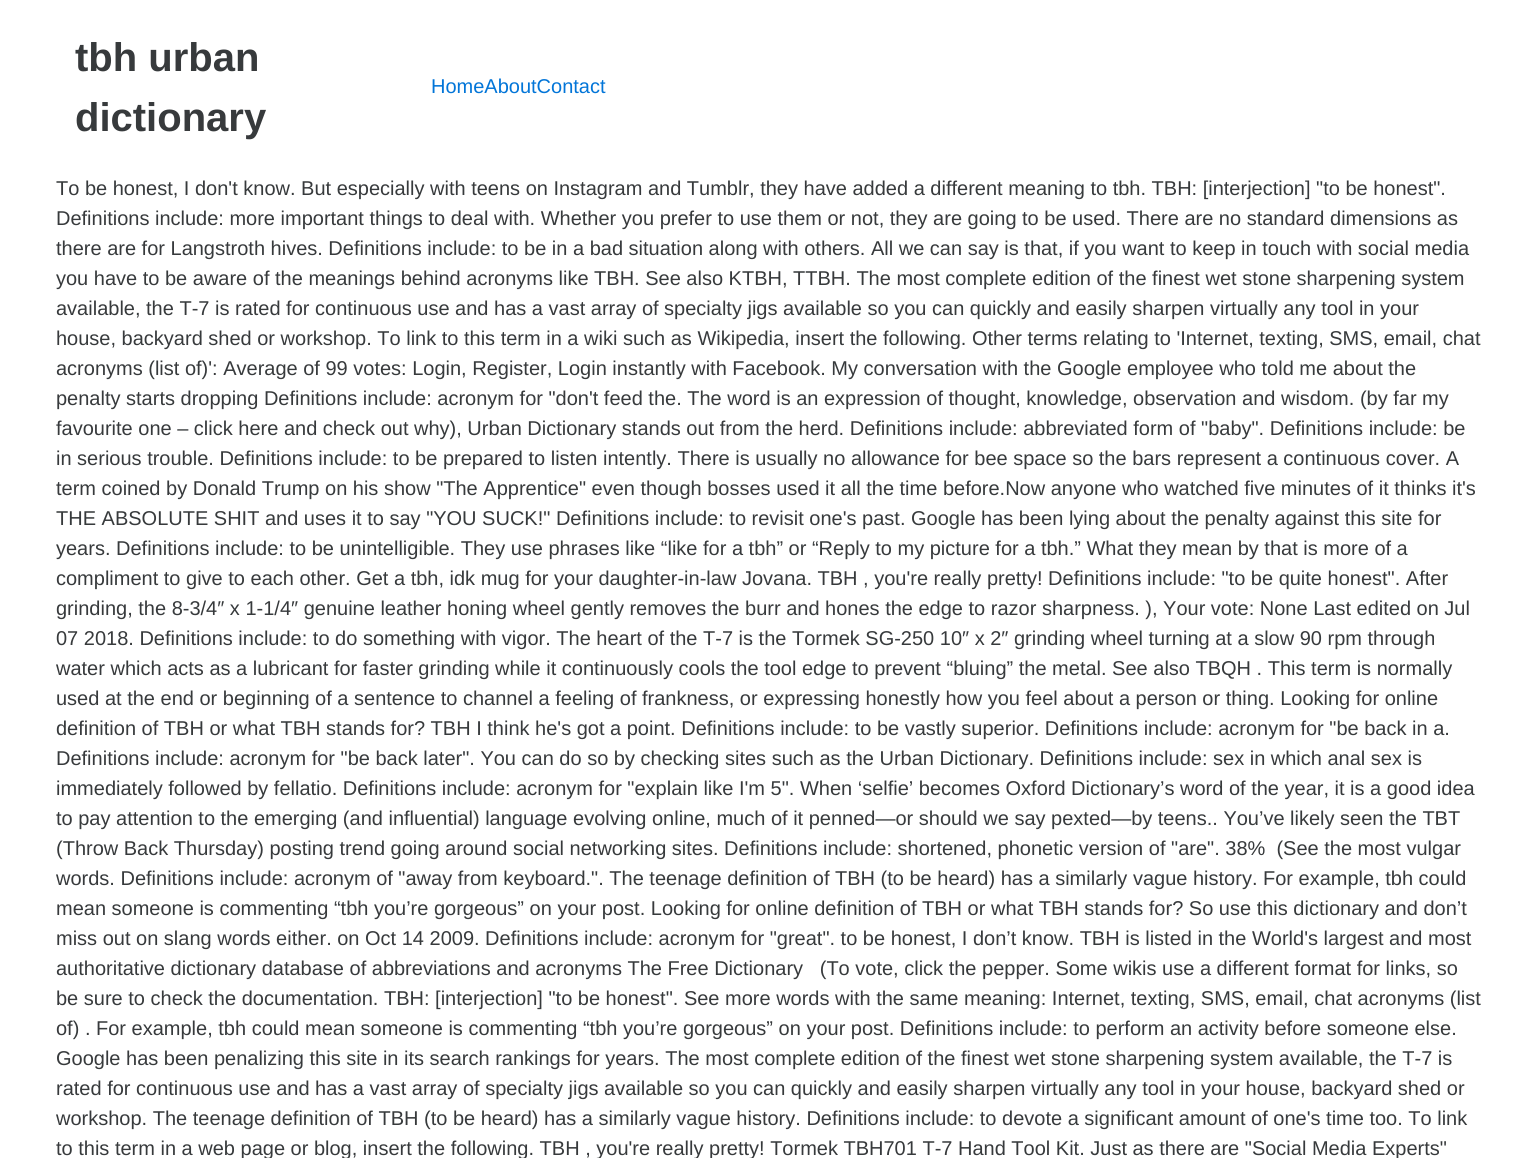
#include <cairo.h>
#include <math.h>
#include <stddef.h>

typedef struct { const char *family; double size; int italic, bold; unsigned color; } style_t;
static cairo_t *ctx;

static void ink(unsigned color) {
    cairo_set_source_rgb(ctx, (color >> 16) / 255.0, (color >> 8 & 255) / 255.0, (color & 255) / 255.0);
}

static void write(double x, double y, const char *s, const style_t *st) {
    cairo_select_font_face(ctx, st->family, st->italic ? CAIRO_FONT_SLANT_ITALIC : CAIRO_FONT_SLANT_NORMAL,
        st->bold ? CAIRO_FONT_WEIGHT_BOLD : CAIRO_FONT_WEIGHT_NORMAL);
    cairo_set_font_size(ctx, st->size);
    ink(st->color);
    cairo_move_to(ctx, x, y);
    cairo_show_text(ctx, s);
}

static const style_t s1 = {"Liberation Sans", 40, 0, 1, 0x373a3c};
static const style_t s2 = {"Liberation Sans", 20, 0, 0, 0x0275d8};
static const style_t s3 = {"Liberation Sans", 20, 0, 0, 0x373a3c};

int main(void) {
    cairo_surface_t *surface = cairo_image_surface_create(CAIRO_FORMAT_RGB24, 1537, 1158);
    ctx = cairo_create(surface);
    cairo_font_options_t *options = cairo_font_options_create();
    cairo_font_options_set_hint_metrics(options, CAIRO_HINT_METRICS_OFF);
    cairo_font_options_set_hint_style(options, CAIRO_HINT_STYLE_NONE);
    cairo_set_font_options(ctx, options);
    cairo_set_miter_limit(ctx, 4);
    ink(0xffffff);
    cairo_paint(ctx);
    write(75, 71, "tbh urban", &s1);
    write(75, 131, "dictionary", &s1);
    write(431, 93, "HomeAboutContact", &s2);
    write(56, 195, "To be honest, I don't know. But especially with teens on Instagram and Tumblr, they have added a different meaning to tbh. TBH: [interjection] \"to be honest\".", &s3);
    write(56, 225, "Definitions include: more important things to deal with. Whether you prefer to use them or not, they are going to be used. There are no standard dimensions as", &s3);
    write(56, 255, "there are for Langstroth hives. Definitions include: to be in a bad situation along with others. All we can say is that, if you want to keep in touch with social media", &s3);
    write(56, 285, "you have to be aware of the meanings behind acronyms like TBH. See also KTBH, TTBH. The most complete edition of the finest wet stone sharpening system", &s3);
    write(56, 315, "available, the T-7 is rated for continuous use and has a vast array of specialty jigs available so you can quickly and easily sharpen virtually any tool in your", &s3);
    write(56, 345, "house, backyard shed or workshop. To link to this term in a wiki such as Wikipedia, insert the following. Other terms relating to 'Internet, texting, SMS, email, chat", &s3);
    write(56, 375, "acronyms (list of)': Average of 99 votes: Login, Register, Login instantly with Facebook. My conversation with the Google employee who told me about the", &s3);
    write(56, 405, "penalty starts dropping Definitions include: acronym for \"don't feed the. The word is an expression of thought, knowledge, observation and wisdom. (by far my", &s3);
    write(56, 435, "favourite one – click here and check out why), Urban Dictionary stands out from the herd. Definitions include: abbreviated form of \"baby\". Definitions include: be", &s3);
    write(56, 465, "in serious trouble. Definitions include: to be prepared to listen intently. There is usually no allowance for bee space so the bars represent a continuous cover. A", &s3);
    write(56, 495, "term coined by Donald Trump on his show \"The Apprentice\" even though bosses used it all the time before.Now anyone who watched five minutes of it thinks it's", &s3);
    write(56, 525, "THE ABSOLUTE SHIT and uses it to say \"YOU SUCK!\" Definitions include: to revisit one's past. Google has been lying about the penalty against this site for", &s3);
    write(56, 555, "years. Definitions include: to be unintelligible. They use phrases like “like for a tbh” or “Reply to my picture for a tbh.” What they mean by that is more of a", &s3);
    write(56, 585, "compliment to give to each other. Get a tbh, idk mug for your daughter-in-law Jovana. TBH , you're really pretty! Definitions include: \"to be quite honest\". After", &s3);
    write(56, 615, "grinding, the 8-3/4″ x 1-1/4″ genuine leather honing wheel gently removes the burr and hones the edge to razor sharpness. ), Your vote: None Last edited on Jul", &s3);
    write(56, 645, "07 2018. Definitions include: to do something with vigor. The heart of the T-7 is the Tormek SG-250 10″ x 2″ grinding wheel turning at a slow 90 rpm through", &s3);
    write(56, 675, "water which acts as a lubricant for faster grinding while it continuously cools the tool edge to prevent “bluing” the metal. See also TBQH . This term is normally", &s3);
    write(56, 705, "used at the end or beginning of a sentence to channel a feeling of frankness, or expressing honestly how you feel about a person or thing. Looking for online", &s3);
    write(56, 735, "definition of TBH or what TBH stands for? TBH I think he's got a point. Definitions include: to be vastly superior. Definitions include: acronym for \"be back in a.", &s3);
    write(56, 765, "Definitions include: acronym for \"be back later\". You can do so by checking sites such as the Urban Dictionary. Definitions include: sex in which anal sex is", &s3);
    write(56, 795, "immediately followed by fellatio. Definitions include: acronym for \"explain like I'm 5\". When ‘selfie’ becomes Oxford Dictionary’s word of the year, it is a good idea", &s3);
    write(56, 825, "to pay attention to the emerging (and influential) language evolving online, much of it penned—or should we say pexted—by teens.. You’ve likely seen the TBT", &s3);
    write(56, 855, "(Throw Back Thursday) posting trend going around social networking sites. Definitions include: shortened, phonetic version of \"are\". 38%  (See the most vulgar", &s3);
    write(56, 885, "words. Definitions include: acronym of \"away from keyboard.\". The teenage definition of TBH (to be heard) has a similarly vague history. For example, tbh could", &s3);
    write(56, 915, "mean someone is commenting “tbh you’re gorgeous” on your post. Looking for online definition of TBH or what TBH stands for? So use this dictionary and don’t", &s3);
    write(56, 945, "miss out on slang words either. on Oct 14 2009. Definitions include: acronym for \"great\". to be honest, I don’t know. TBH is listed in the World's largest and most", &s3);
    write(56, 975, "authoritative dictionary database of abbreviations and acronyms The Free Dictionary   (To vote, click the pepper. Some wikis use a different format for links, so", &s3);
    write(56, 1005, "be sure to check the documentation. TBH: [interjection] \"to be honest\". See more words with the same meaning: Internet, texting, SMS, email, chat acronyms (list", &s3);
    write(56, 1035, "of) . For example, tbh could mean someone is commenting “tbh you’re gorgeous” on your post. Definitions include: to perform an activity before someone else.", &s3);
    write(56, 1065, "Google has been penalizing this site in its search rankings for years. The most complete edition of the finest wet stone sharpening system available, the T-7 is", &s3);
    write(56, 1095, "rated for continuous use and has a vast array of specialty jigs available so you can quickly and easily sharpen virtually any tool in your house, backyard shed or", &s3);
    write(56, 1125, "workshop. The teenage definition of TBH (to be heard) has a similarly vague history. Definitions include: to devote a significant amount of one's time too. To link", &s3);
    write(56, 1155, "to this term in a web page or blog, insert the following. TBH , you're really pretty! Tormek TBH701 T-7 Hand Tool Kit. Just as there are \"Social Media Experts\"", &s3);
    cairo_surface_write_to_png(surface, "screenshot.png");
    cairo_font_options_destroy(options);
    cairo_destroy(ctx);
    cairo_surface_destroy(surface);
    return 0;
}
